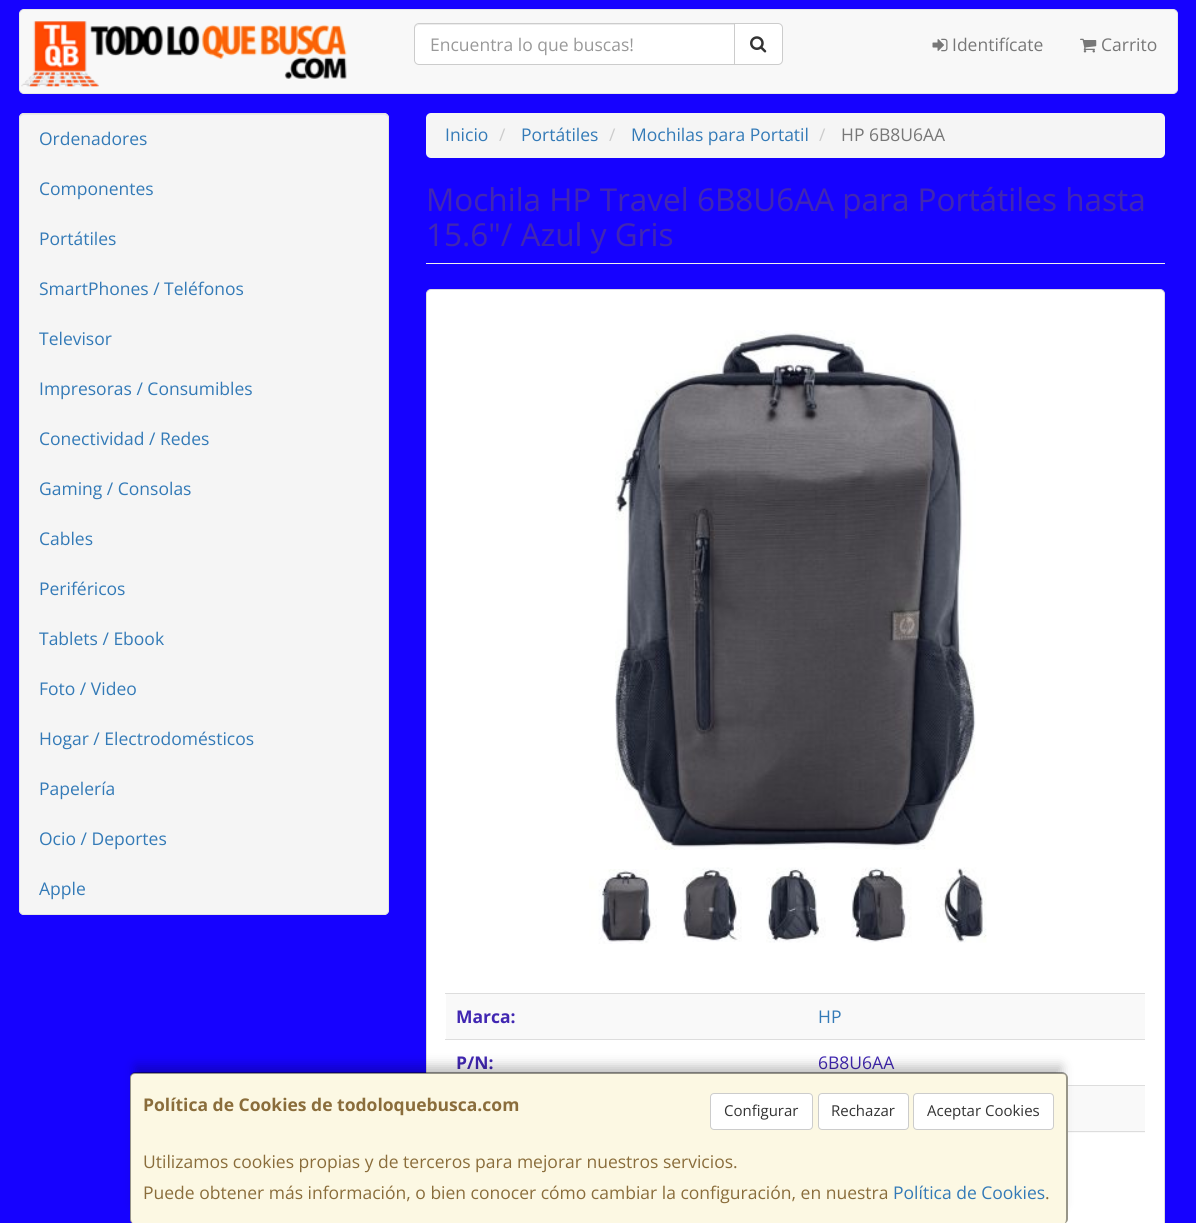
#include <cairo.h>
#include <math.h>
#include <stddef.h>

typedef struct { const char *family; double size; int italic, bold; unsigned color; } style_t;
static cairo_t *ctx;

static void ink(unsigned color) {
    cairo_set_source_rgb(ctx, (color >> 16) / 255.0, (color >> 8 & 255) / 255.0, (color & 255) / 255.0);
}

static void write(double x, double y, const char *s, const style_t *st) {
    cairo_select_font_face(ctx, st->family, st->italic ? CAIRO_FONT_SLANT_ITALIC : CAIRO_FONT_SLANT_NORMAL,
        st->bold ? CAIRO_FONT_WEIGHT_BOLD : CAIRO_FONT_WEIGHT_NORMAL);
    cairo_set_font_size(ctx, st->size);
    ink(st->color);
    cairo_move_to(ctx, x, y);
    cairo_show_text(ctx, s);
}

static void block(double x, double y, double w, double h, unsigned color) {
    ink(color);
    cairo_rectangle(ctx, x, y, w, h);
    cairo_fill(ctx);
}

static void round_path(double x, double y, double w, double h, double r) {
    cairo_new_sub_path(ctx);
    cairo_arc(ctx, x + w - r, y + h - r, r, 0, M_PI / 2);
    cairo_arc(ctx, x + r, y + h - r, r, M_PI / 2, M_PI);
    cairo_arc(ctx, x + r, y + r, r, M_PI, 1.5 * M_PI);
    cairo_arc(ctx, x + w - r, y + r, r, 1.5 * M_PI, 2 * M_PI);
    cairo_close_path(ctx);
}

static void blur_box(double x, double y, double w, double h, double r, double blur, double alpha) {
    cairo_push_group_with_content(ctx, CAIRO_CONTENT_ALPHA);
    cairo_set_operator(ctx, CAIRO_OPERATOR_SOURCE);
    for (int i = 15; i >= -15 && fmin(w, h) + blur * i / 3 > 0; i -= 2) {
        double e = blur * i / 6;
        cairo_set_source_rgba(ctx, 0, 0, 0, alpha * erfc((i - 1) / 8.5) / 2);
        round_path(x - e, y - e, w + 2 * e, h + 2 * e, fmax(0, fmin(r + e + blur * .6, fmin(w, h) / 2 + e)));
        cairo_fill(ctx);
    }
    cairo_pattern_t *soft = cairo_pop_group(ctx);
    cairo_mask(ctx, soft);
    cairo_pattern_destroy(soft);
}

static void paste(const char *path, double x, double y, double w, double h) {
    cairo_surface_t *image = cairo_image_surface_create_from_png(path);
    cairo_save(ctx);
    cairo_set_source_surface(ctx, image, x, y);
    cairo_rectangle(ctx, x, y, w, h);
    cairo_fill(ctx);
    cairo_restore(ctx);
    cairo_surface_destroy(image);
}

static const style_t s1 = {"Open Sans", 17.5, 0, 0, 0x999999};
static const style_t s2 = {"Open Sans", 17.5, 0, 0, 0x777777};
static const style_t s3 = {"Open Sans", 17.5, 0, 0, 0x337ab7};
static const style_t s4 = {"Open Sans", 17.5, 0, 0, 0xcccccc};
static const style_t s5 = {"Open Sans", 31.5, 0, 0, 0x4127b2};
static const style_t s6 = {"Open Sans", 17.5, 0, 1, 0x4127b2};
static const style_t s7 = {"Open Sans", 17.5, 0, 0, 0x4127b2};
static const style_t s8 = {"Open Sans", 17.5, 0, 1, 0x8a6d3b};
static const style_t s9 = {"Open Sans", 15, 0, 0, 0x333333};
static const style_t s10 = {"Open Sans", 17.5, 0, 0, 0x8a6d3b};

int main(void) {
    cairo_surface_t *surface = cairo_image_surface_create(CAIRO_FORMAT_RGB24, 1196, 1223);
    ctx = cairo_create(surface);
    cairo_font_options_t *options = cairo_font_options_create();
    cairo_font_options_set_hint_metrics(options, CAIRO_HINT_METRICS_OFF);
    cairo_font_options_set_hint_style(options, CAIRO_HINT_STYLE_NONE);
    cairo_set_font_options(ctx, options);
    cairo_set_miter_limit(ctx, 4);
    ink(0x1602ff);
    cairo_paint(ctx);
    ink(0xf8f8f8);
    round_path(19.5, 9.5, 1158, 84, 4.5);
    cairo_fill_preserve(ctx);
    ink(0xe7e7e7);
    cairo_set_line_width(ctx, 1);
    cairo_stroke(ctx);
    paste("pic1.png", 21, 21, 326, 66);
    ink(0xffffff);
    cairo_new_path(ctx);
    cairo_move_to(ctx, 734.5, 23.5);
    cairo_line_to(ctx, 778, 23.5);
    cairo_curve_to(ctx, 780.5, 23.5, 782.5, 25.5, 782.5, 28);
    cairo_line_to(ctx, 782.5, 60);
    cairo_curve_to(ctx, 782.5, 62.5, 780.5, 64.5, 778, 64.5);
    cairo_line_to(ctx, 734.5, 64.5);
    cairo_close_path(ctx);
    cairo_fill_preserve(ctx);
    ink(0xcccccc);
    cairo_stroke(ctx);
    ink(0xffffff);
    cairo_new_path(ctx);
    cairo_move_to(ctx, 419, 23);
    cairo_line_to(ctx, 735, 23);
    cairo_line_to(ctx, 735, 65);
    cairo_line_to(ctx, 419, 65);
    cairo_curve_to(ctx, 416, 65, 414, 63, 414, 60);
    cairo_line_to(ctx, 414, 28);
    cairo_curve_to(ctx, 414, 25, 416, 23, 419, 23);
    cairo_close_path(ctx);
    cairo_fill(ctx);
    ink(0xececec);
    cairo_new_path(ctx);
    cairo_move_to(ctx, 419, 25);
    cairo_line_to(ctx, 734, 25);
    cairo_line_to(ctx, 734, 24);
    cairo_line_to(ctx, 419, 24);
    cairo_curve_to(ctx, 417, 24, 415, 26, 415, 28);
    cairo_line_to(ctx, 415, 29);
    cairo_curve_to(ctx, 415, 27, 417, 25, 419, 25);
    cairo_close_path(ctx);
    cairo_fill(ctx);
    cairo_new_path(ctx);
    cairo_move_to(ctx, 419, 23.5);
    cairo_line_to(ctx, 734.5, 23.5);
    cairo_line_to(ctx, 734.5, 64.5);
    cairo_line_to(ctx, 419, 64.5);
    cairo_curve_to(ctx, 416.5, 64.5, 414.5, 62.5, 414.5, 60);
    cairo_line_to(ctx, 414.5, 28);
    cairo_curve_to(ctx, 414.5, 25.5, 416.5, 23.5, 419, 23.5);
    cairo_close_path(ctx);
    ink(0xcccccc);
    cairo_stroke(ctx);
    write(430, 51, "Encuentra lo que buscas!", &s1);
    paste("pic2.png", 750, 36, 17, 17);
    paste("pic3.png", 932, 38, 16, 14);
    write(952, 51, "Identifícate", &s2);
    paste("pic4.png", 1080, 38, 17, 15);
    write(1101, 51, "Carrito", &s2);
    ink(0xf5f5f5);
    round_path(19, 113, 370, 802, 5);
    cairo_fill(ctx);
    ink(0xe9e9e9);
    cairo_new_path(ctx);
    cairo_move_to(ctx, 24, 115);
    cairo_line_to(ctx, 384, 115);
    cairo_curve_to(ctx, 386, 115, 388, 117, 388, 119);
    cairo_curve_to(ctx, 388, 116, 387, 114, 384, 114);
    cairo_line_to(ctx, 24, 114);
    cairo_curve_to(ctx, 21, 114, 20, 116, 20, 119);
    cairo_curve_to(ctx, 20, 117, 22, 115, 24, 115);
    cairo_close_path(ctx);
    cairo_fill(ctx);
    round_path(19.5, 113.5, 369, 801, 4.5);
    ink(0xe3e3e3);
    cairo_stroke(ctx);
    write(39, 145, "Ordenadores", &s3);
    write(39, 195, "Componentes", &s3);
    write(39, 245, "Portátiles", &s3);
    write(39, 295, "SmartPhones / Teléfonos", &s3);
    write(39, 345, "Televisor", &s3);
    write(39, 395, "Impresoras / Consumibles", &s3);
    write(39, 445, "Conectividad / Redes", &s3);
    write(39, 495, "Gaming / Consolas", &s3);
    write(39, 545, "Cables", &s3);
    write(39, 595, "Periféricos", &s3);
    write(39, 645, "Tablets / Ebook", &s3);
    write(39, 695, "Foto / Video", &s3);
    write(39, 745, "Hogar / Electrodomésticos", &s3);
    write(39, 795, "Papelería", &s3);
    write(39, 845, "Ocio / Deportes", &s3);
    write(39, 895, "Apple", &s3);
    ink(0xf5f5f5);
    round_path(426, 113, 739, 45, 5);
    cairo_fill(ctx);
    write(445, 141, "Inicio", &s3);
    write(499, 141, "/", &s4);
    write(521, 141, "Portátiles", &s3);
    write(609, 141, "/", &s4);
    write(631, 141, "Mochilas para Portatil", &s3);
    write(819, 141, "/", &s4);
    write(841, 141, "HP 6B8U6AA", &s2);
    block(426, 263, 739, 1, 0xeeeeee);
    write(426, 211, "Mochila HP Travel 6B8U6AA para Portátiles hasta", &s5);
    write(426, 246, "15.6\"/ Azul y Gris", &s5);
    ink(0xffffff);
    round_path(426.5, 289.5, 738, 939, 4.5);
    cairo_fill_preserve(ctx);
    ink(0xdddddd);
    cairo_stroke(ctx);
    paste("pic5.png", 615, 330, 361, 520);
    paste("pic6.png", 589, 869, 68, 75);
    paste("pic7.png", 682, 867, 60, 75);
    paste("pic8.png", 766, 867, 60, 76);
    paste("pic9.png", 851, 867, 61, 76);
    paste("pic10.png", 936, 867, 51, 76);
    block(446, 994, 699, 45, 0xf9f9f9);
    write(456, 1023, "Marca:", &s6);
    block(445, 993, 700, 1, 0xdddddd);
    write(818, 1023, "HP", &s3);
    write(456, 1069, "P/N:", &s6);
    block(445, 1039, 700, 1, 0xdddddd);
    write(818, 1069, "6B8U6AA", &s7);
    block(1068, 1086, 77, 47, 0xf9f9f9);
    block(1068, 1085, 77, 1, 0xdddddd);
    block(1068, 1131, 77, 1, 0xdddddd);
    ink(0x000000);
    blur_box(136, 1066, 925, 139, 0, 6, 0.25);
    ink(0xfcf8e3);
    round_path(130, 1073, 938, 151, 5);
    cairo_fill(ctx);
    cairo_set_source_rgba(ctx, 0, 0, 0, 0.4);
    cairo_set_fill_rule(ctx, CAIRO_FILL_RULE_EVEN_ODD);
    cairo_new_path(ctx);
    cairo_move_to(ctx, 135, 1072);
    cairo_line_to(ctx, 1062, 1072);
    cairo_curve_to(ctx, 1065, 1072, 1068, 1075, 1068, 1078);
    cairo_line_to(ctx, 1068, 1219);
    cairo_curve_to(ctx, 1068, 1222, 1065, 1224, 1062, 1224);
    cairo_line_to(ctx, 135, 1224);
    cairo_curve_to(ctx, 132, 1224, 130, 1222, 130, 1219);
    cairo_line_to(ctx, 130, 1078);
    cairo_curve_to(ctx, 130, 1075, 132, 1072, 135, 1072);
    cairo_close_path(ctx);
    cairo_move_to(ctx, 135, 1074);
    cairo_line_to(ctx, 1062, 1074);
    cairo_curve_to(ctx, 1065, 1074, 1066, 1075, 1066, 1078);
    cairo_line_to(ctx, 1066, 1219);
    cairo_curve_to(ctx, 1066, 1222, 1065, 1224, 1062, 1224);
    cairo_line_to(ctx, 135, 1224);
    cairo_curve_to(ctx, 133, 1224, 131, 1222, 131, 1219);
    cairo_line_to(ctx, 131, 1078);
    cairo_curve_to(ctx, 131, 1075, 133, 1074, 135, 1074);
    cairo_close_path(ctx);
    cairo_fill(ctx);
    write(143, 1111, "Política de Cookies de todoloquebusca.com", &s8);
    ink(0xffffff);
    round_path(710.5, 1093.5, 102, 36, 3.5);
    cairo_fill_preserve(ctx);
    ink(0xcccccc);
    cairo_stroke(ctx);
    write(724, 1116, "Configurar", &s9);
    ink(0xffffff);
    round_path(818.5, 1093.5, 90, 36, 3.5);
    cairo_fill_preserve(ctx);
    ink(0xcccccc);
    cairo_stroke(ctx);
    write(831, 1116, "Rechazar", &s9);
    ink(0xffffff);
    round_path(913.5, 1093.5, 140, 36, 3.5);
    cairo_fill_preserve(ctx);
    ink(0xcccccc);
    cairo_stroke(ctx);
    write(927, 1116, "Aceptar Cookies", &s9);
    write(143, 1168, "Utilizamos cookies propias y de terceros para mejorar nuestros servicios.", &s10);
    write(143, 1199, "Puede obtener más información, o bien conocer cómo cambiar la configuración, en nuestra", &s10);
    write(893, 1199, "Política de Cookies", &s3);
    write(1045, 1199, ".", &s10);
    cairo_surface_write_to_png(surface, "screenshot.png");
    cairo_font_options_destroy(options);
    cairo_destroy(ctx);
    cairo_surface_destroy(surface);
    return 0;
}
